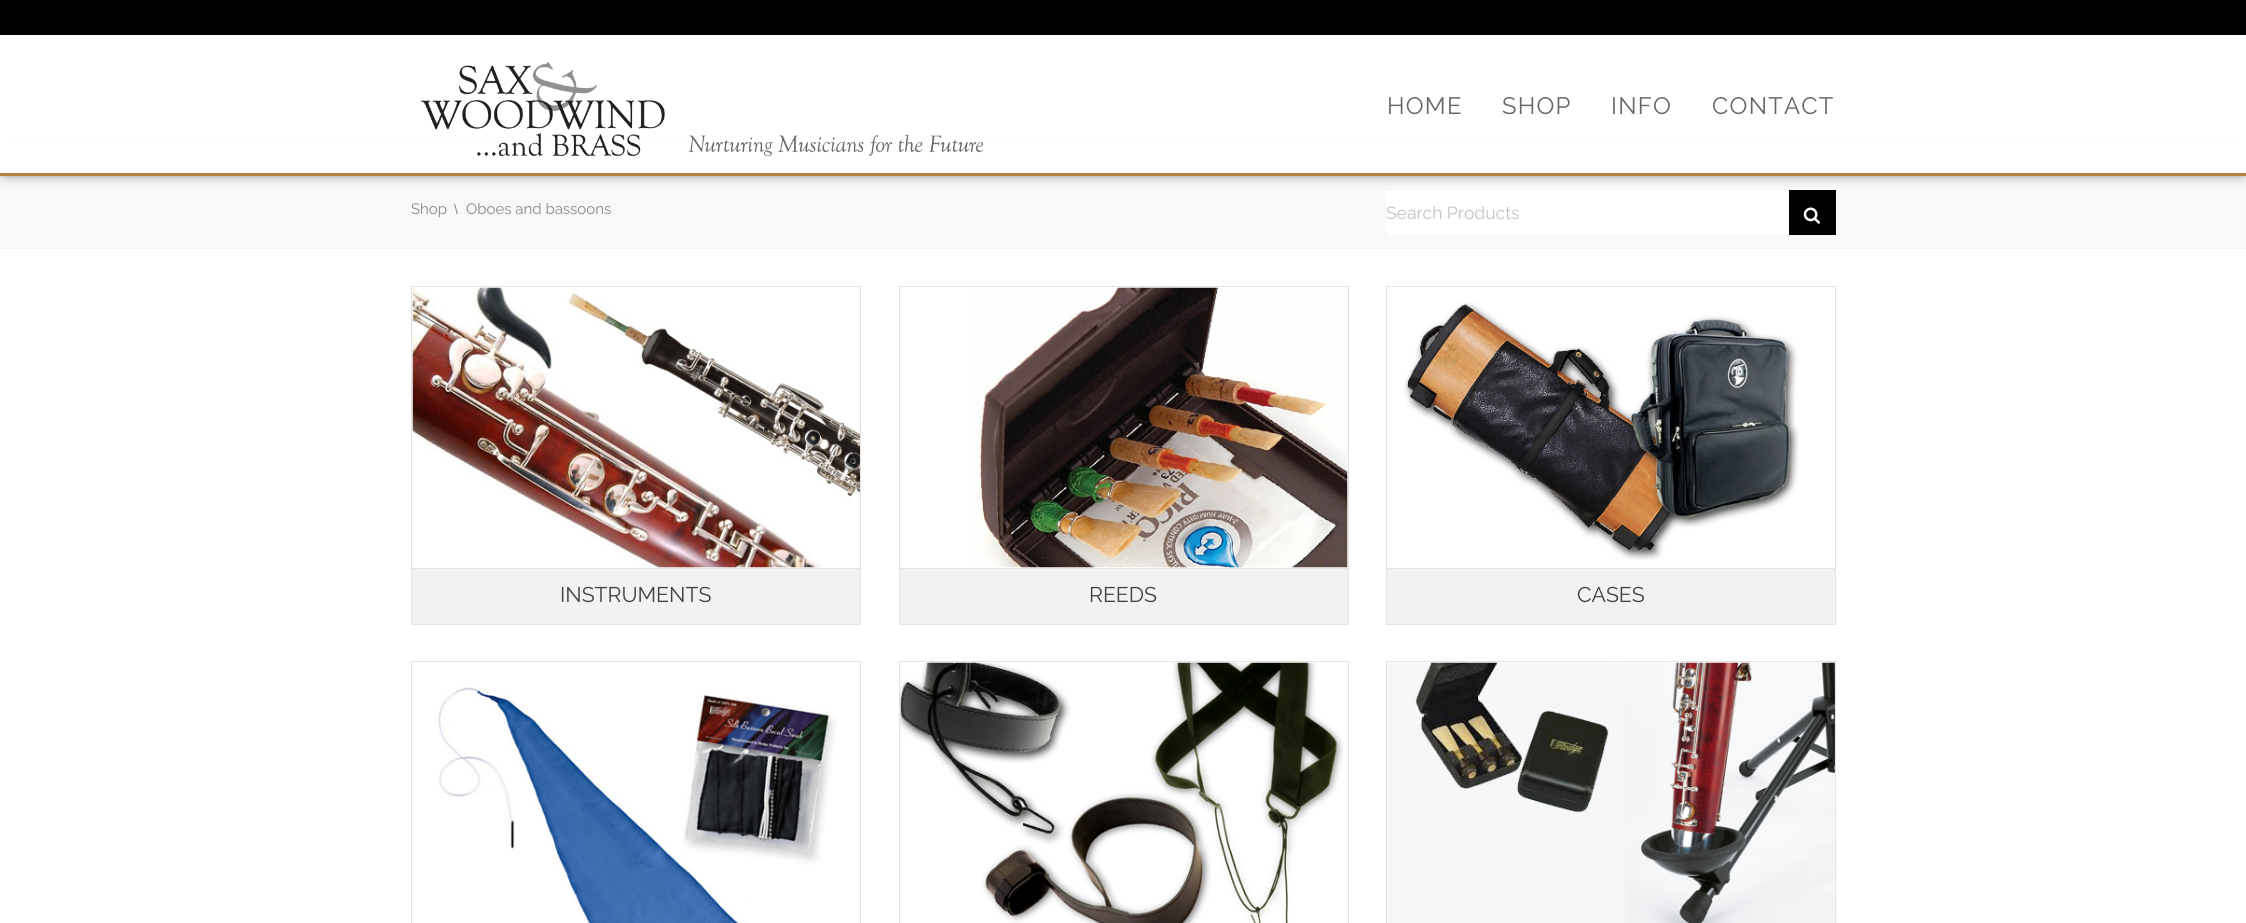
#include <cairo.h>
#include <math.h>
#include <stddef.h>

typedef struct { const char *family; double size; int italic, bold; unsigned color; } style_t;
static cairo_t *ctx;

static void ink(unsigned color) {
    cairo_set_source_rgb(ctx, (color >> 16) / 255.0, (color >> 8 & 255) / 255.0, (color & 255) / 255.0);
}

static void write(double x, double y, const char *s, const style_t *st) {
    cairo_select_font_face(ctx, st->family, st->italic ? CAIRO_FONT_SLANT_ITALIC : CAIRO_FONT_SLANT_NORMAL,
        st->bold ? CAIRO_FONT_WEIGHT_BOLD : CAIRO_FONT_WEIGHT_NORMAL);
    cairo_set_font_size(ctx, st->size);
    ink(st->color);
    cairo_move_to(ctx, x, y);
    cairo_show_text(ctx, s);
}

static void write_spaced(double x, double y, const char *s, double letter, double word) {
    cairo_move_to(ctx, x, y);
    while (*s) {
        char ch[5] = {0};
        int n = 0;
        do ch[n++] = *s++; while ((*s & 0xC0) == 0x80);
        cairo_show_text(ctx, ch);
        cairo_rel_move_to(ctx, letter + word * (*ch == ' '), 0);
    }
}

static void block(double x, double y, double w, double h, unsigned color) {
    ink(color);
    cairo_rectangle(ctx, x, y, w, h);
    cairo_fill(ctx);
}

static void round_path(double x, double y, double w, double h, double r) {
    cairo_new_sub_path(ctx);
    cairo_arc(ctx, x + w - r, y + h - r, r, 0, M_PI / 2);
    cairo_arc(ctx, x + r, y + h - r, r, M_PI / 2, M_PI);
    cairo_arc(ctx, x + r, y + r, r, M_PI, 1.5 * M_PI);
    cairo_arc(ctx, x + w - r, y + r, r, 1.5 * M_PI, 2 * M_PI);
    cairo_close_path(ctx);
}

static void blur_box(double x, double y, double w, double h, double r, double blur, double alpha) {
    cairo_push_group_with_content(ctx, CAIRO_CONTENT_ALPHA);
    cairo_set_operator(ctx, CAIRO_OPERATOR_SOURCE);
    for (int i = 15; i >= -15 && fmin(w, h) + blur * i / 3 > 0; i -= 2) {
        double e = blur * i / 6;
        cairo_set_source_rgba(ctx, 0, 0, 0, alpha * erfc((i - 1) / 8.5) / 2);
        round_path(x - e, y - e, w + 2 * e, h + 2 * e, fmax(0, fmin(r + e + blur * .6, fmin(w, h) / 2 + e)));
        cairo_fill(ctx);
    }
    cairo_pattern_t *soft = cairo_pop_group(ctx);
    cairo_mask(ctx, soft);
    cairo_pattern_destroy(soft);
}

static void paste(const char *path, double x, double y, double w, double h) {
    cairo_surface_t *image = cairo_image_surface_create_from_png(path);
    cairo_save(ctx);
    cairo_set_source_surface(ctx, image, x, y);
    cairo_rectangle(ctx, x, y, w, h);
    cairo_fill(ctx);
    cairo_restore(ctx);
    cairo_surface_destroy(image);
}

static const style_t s1 = {"Raleway", 15, 0, 0, 0x888888};
static const style_t s2 = {"Liberation Sans", 14, 0, 0, 0x888888};
static const style_t s3 = {"Raleway", 17.5, 0, 0, 0xc2c2c2};
static const style_t s4 = {"Raleway", 21.25, 0, 0, 0x424242};

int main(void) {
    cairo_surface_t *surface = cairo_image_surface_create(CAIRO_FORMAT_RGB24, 2246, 923);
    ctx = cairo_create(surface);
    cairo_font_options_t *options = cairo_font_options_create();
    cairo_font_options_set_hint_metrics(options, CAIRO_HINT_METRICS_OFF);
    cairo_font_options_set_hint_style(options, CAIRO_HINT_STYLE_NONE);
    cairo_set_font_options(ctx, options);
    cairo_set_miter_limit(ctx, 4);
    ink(0xffffff);
    cairo_paint(ctx);
    block(0, 176, 2246, 72, 0xf8f8f8);
    block(1386, 190, 403, 45, 0xffffff);
    block(1789, 190, 47, 45, 0x000000);
    ink(0x000000);
    blur_box(-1, 151, 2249, 23, 11.5, 6, 0.6);
    block(0, 138, 2246, 35, 0xffffff);
    block(0, 173, 2246, 3, 0xb6823e);
    paste("pic1.png", 421, 62, 562, 95);
    block(0, 0, 2246, 35, 0x000000);
    cairo_select_font_face(ctx, "Raleway", CAIRO_FONT_SLANT_NORMAL, CAIRO_FONT_WEIGHT_NORMAL);
    cairo_set_font_size(ctx, 23.75);
    ink(0x666666);
    write_spaced(1387, 114, "HOME", 1.25, 0);
    write_spaced(1502, 114, "SHOP", 1.25, 0);
    write_spaced(1611, 114, "INFO", 1.25, 0);
    write_spaced(1712, 114, "CONTACT", 1.25, 0);
    block(0, 248, 2246, 1, 0xf2f2f2);
    write(411, 214, "Shop", &s1);
    write(454, 214, "\\", &s2);
    write(466, 214, "Oboes and bassoons", &s1);
    write(1386, 219, "Search Products", &s3);
    paste("pic2.png", 1803, 207, 17, 17);
    block(411, 286, 450, 1, 0xe3e3e3);
    block(860, 286, 1, 282, 0xe3e3e3);
    block(411, 286, 1, 282, 0xe3e3e3);
    paste("pic3.png", 412, 287, 448, 281);
    ink(0xf2f2f2);
    cairo_rectangle(ctx, 411.5, 568.5, 449, 56);
    cairo_fill_preserve(ctx);
    ink(0xe3e3e3);
    cairo_set_line_width(ctx, 1);
    cairo_stroke(ctx);
    write(560, 602, "INSTRUMENTS", &s4);
    block(899, 286, 450, 1, 0xe3e3e3);
    block(1348, 286, 1, 282, 0xe3e3e3);
    block(899, 286, 1, 282, 0xe3e3e3);
    paste("pic4.png", 974, 287, 374, 281);
    ink(0xf2f2f2);
    cairo_rectangle(ctx, 899.5, 568.5, 449, 56);
    cairo_fill_preserve(ctx);
    ink(0xe3e3e3);
    cairo_stroke(ctx);
    write(1089, 602, "REEDS", &s4);
    block(1386, 286, 450, 1, 0xe3e3e3);
    block(1835, 286, 1, 282, 0xe3e3e3);
    block(1386, 286, 1, 282, 0xe3e3e3);
    paste("pic5.png", 1403, 302, 396, 258);
    ink(0xf2f2f2);
    cairo_rectangle(ctx, 1386.5, 568.5, 449, 56);
    cairo_fill_preserve(ctx);
    ink(0xe3e3e3);
    cairo_stroke(ctx);
    write(1577, 602, "CASES", &s4);
    block(411, 661, 450, 1, 0xe3e3e3);
    block(860, 661, 1, 262, 0xe3e3e3);
    block(411, 661, 1, 262, 0xe3e3e3);
    paste("pic6.png", 438, 687, 399, 236);
    block(899, 661, 450, 1, 0xe3e3e3);
    block(1348, 661, 1, 262, 0xe3e3e3);
    block(899, 661, 1, 262, 0xe3e3e3);
    paste("pic7.png", 900, 662, 444, 261);
    block(1386, 661, 450, 1, 0xe3e3e3);
    block(1835, 661, 1, 262, 0xe3e3e3);
    block(1386, 661, 1, 262, 0xe3e3e3);
    paste("pic8.png", 1388, 662, 447, 261);
    cairo_surface_write_to_png(surface, "screenshot.png");
    cairo_font_options_destroy(options);
    cairo_destroy(ctx);
    cairo_surface_destroy(surface);
    return 0;
}
